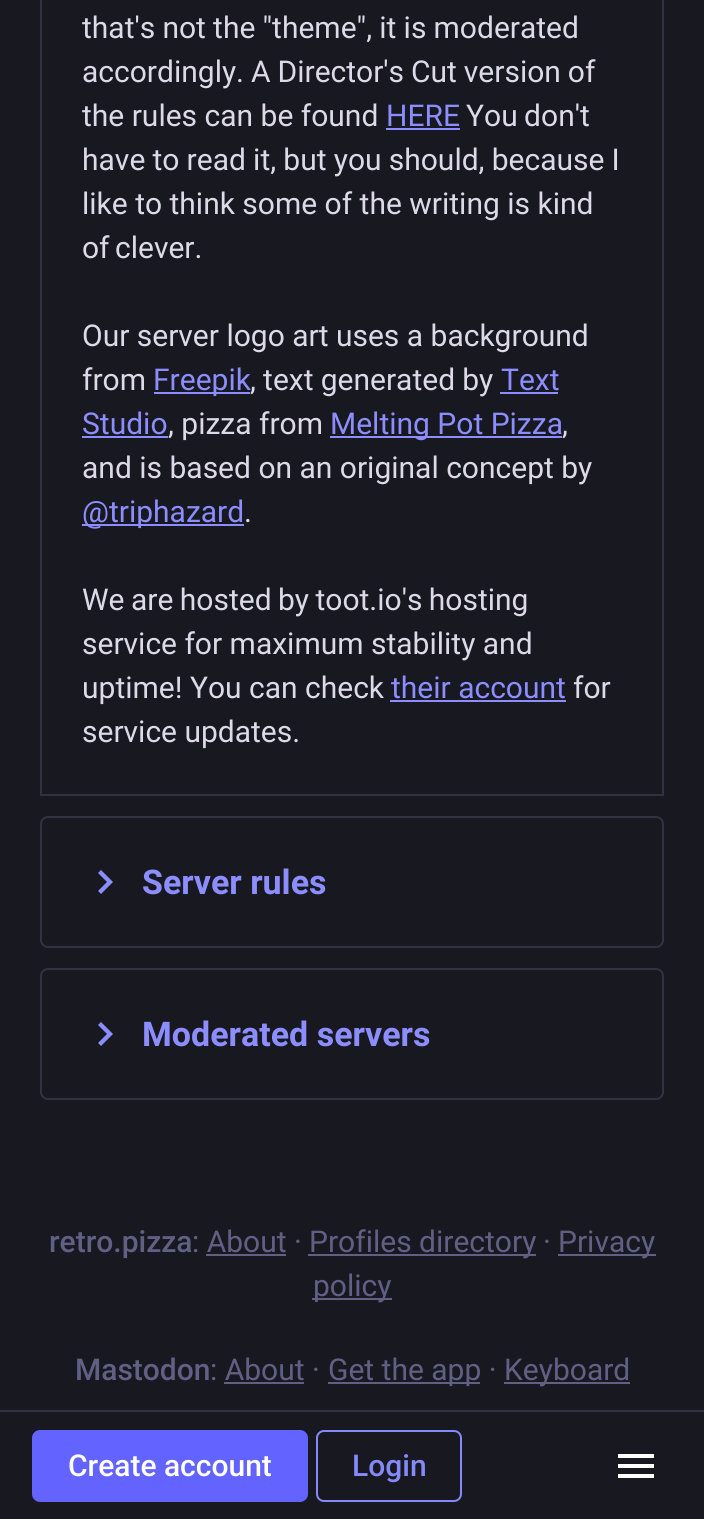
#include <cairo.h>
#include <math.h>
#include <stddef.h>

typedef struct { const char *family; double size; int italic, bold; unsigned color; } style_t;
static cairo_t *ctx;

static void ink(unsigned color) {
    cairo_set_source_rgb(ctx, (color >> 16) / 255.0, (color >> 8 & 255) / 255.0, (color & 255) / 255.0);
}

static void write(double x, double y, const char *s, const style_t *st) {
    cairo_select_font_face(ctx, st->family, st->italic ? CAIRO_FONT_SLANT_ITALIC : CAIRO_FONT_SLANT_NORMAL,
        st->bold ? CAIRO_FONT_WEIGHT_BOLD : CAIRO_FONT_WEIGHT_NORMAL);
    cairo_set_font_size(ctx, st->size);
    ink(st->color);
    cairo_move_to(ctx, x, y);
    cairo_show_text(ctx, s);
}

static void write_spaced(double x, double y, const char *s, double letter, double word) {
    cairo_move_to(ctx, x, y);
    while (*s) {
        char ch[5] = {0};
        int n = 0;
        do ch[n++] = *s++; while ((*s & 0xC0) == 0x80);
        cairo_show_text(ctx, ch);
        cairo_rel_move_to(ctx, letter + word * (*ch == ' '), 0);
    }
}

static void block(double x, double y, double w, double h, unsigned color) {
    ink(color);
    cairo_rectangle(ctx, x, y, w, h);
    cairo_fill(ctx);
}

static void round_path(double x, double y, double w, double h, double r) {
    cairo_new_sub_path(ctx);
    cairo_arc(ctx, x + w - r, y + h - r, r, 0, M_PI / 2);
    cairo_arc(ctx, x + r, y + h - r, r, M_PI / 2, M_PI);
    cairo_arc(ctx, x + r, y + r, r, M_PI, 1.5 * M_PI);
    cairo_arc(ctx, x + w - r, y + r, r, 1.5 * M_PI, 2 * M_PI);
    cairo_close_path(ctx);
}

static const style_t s1 = {"Roboto", 30, 0, 0, 0xddd9e8};
static const style_t s2 = {"Roboto", 30, 0, 0, 0x8c8dff};
static const style_t s3 = {"Roboto", 34, 0, 1, 0x8c8dff};
static const style_t s4 = {"Roboto Medium", 30, 0, 0, 0x606085};
static const style_t s5 = {"Roboto", 30, 0, 0, 0x606085};
static const style_t s6 = {"Roboto Medium", 30, 0, 0, 0xffffff};
static const style_t s7 = {"Roboto Medium", 30, 0, 0, 0x858afa};

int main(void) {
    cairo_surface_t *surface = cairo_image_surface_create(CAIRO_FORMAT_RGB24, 704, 1519);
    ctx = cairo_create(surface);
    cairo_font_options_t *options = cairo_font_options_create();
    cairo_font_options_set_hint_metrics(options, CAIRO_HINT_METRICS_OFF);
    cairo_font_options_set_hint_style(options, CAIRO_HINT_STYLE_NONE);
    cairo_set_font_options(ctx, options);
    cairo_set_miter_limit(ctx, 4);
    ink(0x181821);
    cairo_paint(ctx);
    block(662, 0, 2, 796, 0x313144);
    block(40, 794, 624, 2, 0x313144);
    block(40, 0, 2, 796, 0x313144);
    cairo_select_font_face(ctx, "Roboto", CAIRO_FONT_SLANT_NORMAL, CAIRO_FONT_WEIGHT_NORMAL);
    cairo_set_font_size(ctx, 30);
    ink(0xddd9e8);
    write_spaced(82, 38, "that's not the \"theme\", it is moderated", 0, -0.25);
    write_spaced(82, 82, "accordingly. A Director's Cut version of", 0, -0.5);
    write(82, 126, "the rules can be found", &s1);
    write(386, 126, "HERE", &s2);
    block(386, 128, 74, 2, 0x8c8dff);
    ink(0xddd9e8);
    write_spaced(466, 126, "You don't", 0, -1);
    write_spaced(82, 170, "have to read it, but you should, because I", 0, -0.25);
    write(82, 214, "like to think some of the writing is kind", &s1);
    write_spaced(82, 258, "of clever.", 0, -2);
    write(82, 346, "Our server logo art uses a background", &s1);
    write(82, 390, "from", &s1);
    block(154, 392, 96, 2, 0x8c8dff);
    write(153, 390, "Freepik", &s2);
    ink(0xddd9e8);
    write_spaced(250, 390, ", text generated by", 0, -0.25);
    write(501, 390, "Text", &s2);
    block(500, 392, 58, 2, 0x8c8dff);
    write(82, 434, "Studio", &s2);
    block(82, 436, 86, 2, 0x8c8dff);
    write(168, 434, ", pizza from", &s1);
    block(330, 436, 232, 2, 0x8c8dff);
    write(330, 434, "Melting Pot Pizza", &s2);
    write(562, 434, ",", &s1);
    write(82, 478, "and is based on an original concept by", &s1);
    block(82, 524, 162, 2, 0x8c8dff);
    write(82, 522, "@triphazard", &s2);
    write(244, 522, ".", &s1);
    write_spaced(82, 610, "We are hosted by toot.io's hosting", 0, -1);
    write(82, 654, "service for maximum stability and", &s1);
    write(82, 698, "uptime! You can check", &s1);
    write(391, 698, "their account", &s2);
    block(390, 700, 176, 2, 0x8c8dff);
    write(573, 698, "for", &s1);
    write(82, 742, "service updates.", &s1);
    round_path(41, 817, 622, 130, 7);
    ink(0x313144);
    cairo_stroke(ctx);
    ink(0x8c8dff);
    cairo_new_path(ctx);
    cairo_move_to(ctx, 107, 882);
    cairo_line_to(ctx, 98, 873);
    cairo_line_to(ctx, 101, 870);
    cairo_line_to(ctx, 113, 882);
    cairo_line_to(ctx, 101, 894);
    cairo_line_to(ctx, 98, 891);
    cairo_close_path(ctx);
    cairo_fill(ctx);
    write(142, 894, "Server rules", &s3);
    round_path(41, 969, 622, 130, 7);
    ink(0x313144);
    cairo_stroke(ctx);
    ink(0x8c8dff);
    cairo_new_path(ctx);
    cairo_move_to(ctx, 107, 1034);
    cairo_line_to(ctx, 98, 1025);
    cairo_line_to(ctx, 101, 1022);
    cairo_line_to(ctx, 113, 1034);
    cairo_line_to(ctx, 101, 1046);
    cairo_line_to(ctx, 98, 1043);
    cairo_close_path(ctx);
    cairo_fill(ctx);
    write(142, 1046, "Moderated servers", &s3);
    write(49, 1252, "retro.pizza", &s4);
    write(192, 1252, ": About ·", &s5);
    block(308, 1254, 228, 2, 0x606085);
    write(309, 1252, "Profiles directory", &s5);
    write(543, 1252, "·", &s5);
    block(558, 1254, 98, 2, 0x606085);
    write(558, 1252, "Privacy", &s5);
    block(206, 1254, 80, 2, 0x606085);
    block(312, 1298, 80, 2, 0x606085);
    write(313, 1296, "policy", &s5);
    write(75, 1380, "Mastodon", &s4);
    write(210, 1380, ": About ·", &s5);
    block(328, 1382, 152, 2, 0x606085);
    write(328, 1380, "Get the app ·", &s5);
    block(504, 1382, 126, 2, 0x606085);
    write(504, 1380, "Keyboard", &s5);
    block(224, 1382, 80, 2, 0x606085);
    block(0, 1410, 704, 2, 0x313144);
    ink(0x6364ff);
    round_path(32, 1430, 276, 72, 8);
    cairo_fill(ctx);
    write(68, 1476, "Create account", &s6);
    round_path(317, 1431, 144, 70, 7);
    ink(0x858afa);
    cairo_stroke(ctx);
    write(352, 1476, "Login", &s7);
    ink(0xffffff);
    cairo_new_path(ctx);
    cairo_move_to(ctx, 618, 1478);
    cairo_line_to(ctx, 618, 1474);
    cairo_line_to(ctx, 654, 1474);
    cairo_line_to(ctx, 654, 1478);
    cairo_close_path(ctx);
    cairo_move_to(ctx, 618, 1468);
    cairo_line_to(ctx, 618, 1464);
    cairo_line_to(ctx, 654, 1464);
    cairo_line_to(ctx, 654, 1468);
    cairo_close_path(ctx);
    cairo_move_to(ctx, 618, 1458);
    cairo_line_to(ctx, 618, 1454);
    cairo_line_to(ctx, 654, 1454);
    cairo_line_to(ctx, 654, 1458);
    cairo_close_path(ctx);
    cairo_fill(ctx);
    cairo_surface_write_to_png(surface, "screenshot.png");
    cairo_font_options_destroy(options);
    cairo_destroy(ctx);
    cairo_surface_destroy(surface);
    return 0;
}
